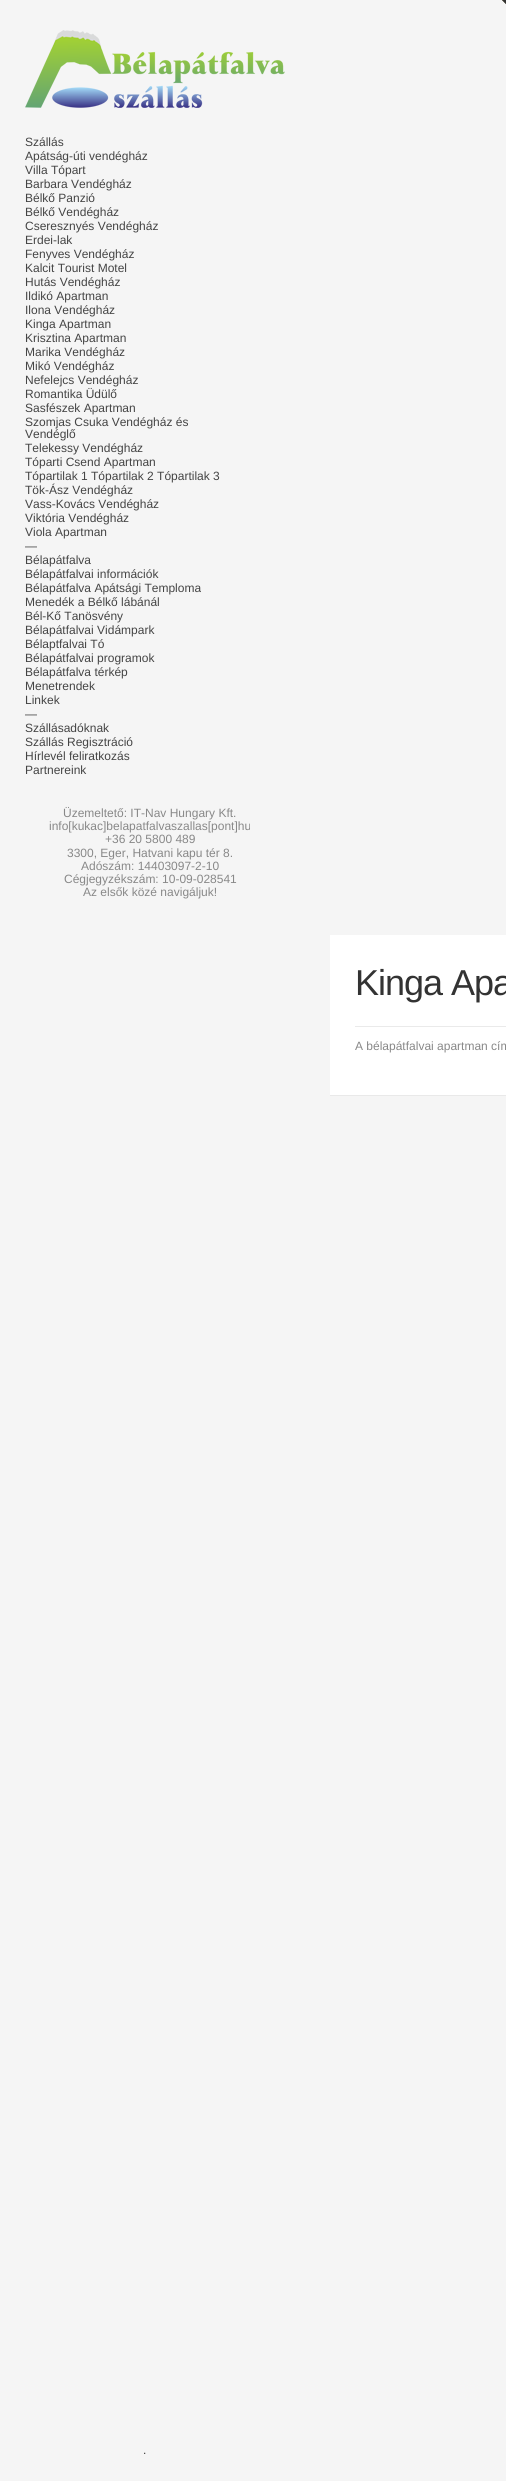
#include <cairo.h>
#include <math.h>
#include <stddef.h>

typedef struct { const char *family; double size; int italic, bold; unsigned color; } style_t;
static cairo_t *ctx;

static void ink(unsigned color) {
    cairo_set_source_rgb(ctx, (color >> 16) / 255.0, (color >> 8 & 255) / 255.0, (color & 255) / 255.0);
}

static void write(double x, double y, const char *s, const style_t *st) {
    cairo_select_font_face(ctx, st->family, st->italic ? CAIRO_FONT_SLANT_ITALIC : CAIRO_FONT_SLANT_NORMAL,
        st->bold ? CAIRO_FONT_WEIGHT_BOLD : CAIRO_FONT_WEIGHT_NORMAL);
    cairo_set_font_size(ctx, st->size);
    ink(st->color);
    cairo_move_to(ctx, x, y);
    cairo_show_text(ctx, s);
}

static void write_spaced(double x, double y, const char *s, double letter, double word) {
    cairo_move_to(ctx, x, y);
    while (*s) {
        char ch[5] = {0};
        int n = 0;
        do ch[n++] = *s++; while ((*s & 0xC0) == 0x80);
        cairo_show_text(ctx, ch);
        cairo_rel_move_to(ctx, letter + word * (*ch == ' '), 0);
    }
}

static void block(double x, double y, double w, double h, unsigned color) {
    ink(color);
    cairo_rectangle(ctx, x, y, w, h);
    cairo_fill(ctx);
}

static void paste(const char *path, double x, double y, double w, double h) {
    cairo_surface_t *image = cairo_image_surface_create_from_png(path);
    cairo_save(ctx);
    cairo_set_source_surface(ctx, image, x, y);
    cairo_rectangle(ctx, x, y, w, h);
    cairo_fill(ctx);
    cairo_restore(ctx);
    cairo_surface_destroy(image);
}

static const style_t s1 = {"Liberation Sans", 12, 0, 0, 0x444444};
static const style_t s2 = {"Liberation Sans", 12, 0, 0, 0x888888};
static const style_t s3 = {"Liberation Sans", 12, 0, 0, 0x3d3d3d};

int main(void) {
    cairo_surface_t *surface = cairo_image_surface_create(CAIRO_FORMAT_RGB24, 506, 2481);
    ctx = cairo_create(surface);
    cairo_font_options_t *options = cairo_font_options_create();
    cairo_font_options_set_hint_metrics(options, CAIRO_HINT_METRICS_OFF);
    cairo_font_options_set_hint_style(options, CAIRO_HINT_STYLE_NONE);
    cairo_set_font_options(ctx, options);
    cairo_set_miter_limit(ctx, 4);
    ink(0xf5f5f5);
    cairo_paint(ctx);
    paste("pic1.png", 502, 0, 4, 4);
    paste("pic2.png", 25, 30, 260, 78);
    write(25, 146, "Szállás", &s1);
    write(25, 160, "Apátság-úti vendégház", &s1);
    write(25, 174, "Villa Tópart", &s1);
    write(25, 188, "Barbara Vendégház", &s1);
    write(25, 202, "Bélkő Panzió", &s1);
    write(25, 216, "Bélkő Vendégház", &s1);
    write(25, 230, "Cseresznyés Vendégház", &s1);
    write(25, 244, "Erdei-lak", &s1);
    write(25, 258, "Fenyves Vendégház", &s1);
    write(25, 272, "Kalcit Tourist Motel", &s1);
    write(25, 286, "Hutás Vendégház", &s1);
    write(25, 300, "Ildikó Apartman", &s1);
    write(25, 314, "Ilona Vendégház", &s1);
    write(25, 328, "Kinga Apartman", &s1);
    write(25, 342, "Krisztina Apartman", &s1);
    write(25, 356, "Marika Vendégház", &s1);
    write(25, 370, "Mikó Vendégház", &s1);
    write(25, 384, "Nefelejcs Vendégház", &s1);
    write(25, 398, "Romantika Üdülő", &s1);
    write(25, 412, "Sasfészek Apartman", &s1);
    write(25, 426, "Szomjas Csuka Vendégház és", &s1);
    write(25, 438, "Vendéglő", &s1);
    write(25, 452, "Telekessy Vendégház", &s1);
    write(25, 466, "Tóparti Csend Apartman", &s1);
    write(25, 480, "Tópartilak 1 Tópartilak 2 Tópartilak 3", &s1);
    write(25, 494, "Tök-Ász Vendégház", &s1);
    write(25, 508, "Vass-Kovács Vendégház", &s1);
    write(25, 522, "Viktória Vendégház", &s1);
    write(25, 536, "Viola Apartman", &s1);
    write(25, 550, "—", &s1);
    write(25, 564, "Bélapátfalva", &s1);
    write(25, 578, "Bélapátfalvai információk", &s1);
    write(25, 592, "Bélapátfalva Apátsági Temploma", &s1);
    write(25, 606, "Menedék a Bélkő lábánál", &s1);
    write(25, 620, "Bél-Kő Tanösvény", &s1);
    write(25, 634, "Bélapátfalvai Vidámpark", &s1);
    write(25, 648, "Bélaptfalvai Tó", &s1);
    write(25, 662, "Bélapátfalvai programok", &s1);
    write(25, 676, "Bélapátfalva térkép", &s1);
    write(25, 690, "Menetrendek", &s1);
    write(25, 704, "Linkek", &s1);
    write(25, 718, "—", &s1);
    write(25, 732, "Szállásadóknak", &s1);
    write(25, 746, "Szállás Regisztráció", &s1);
    write(25, 760, "Hírlevél feliratkozás", &s1);
    write(25, 774, "Partnereink", &s1);
    write(63, 817, "Üzemeltető: IT-Nav Hungary Kft.", &s2);
    write(49, 830, "info[kukac]belapatfalvaszallas[pont]hu", &s2);
    write(105, 843, "+36 20 5800 489", &s2);
    write(67, 857, "3300, Eger, Hatvani kapu tér 8.", &s2);
    write(81, 870, "Adószám: 14403097-2-10", &s2);
    write(64, 883, "Cégjegyzékszám: 10-09-028541", &s2);
    write(83, 896, "Az elsők közé navigáljuk!", &s2);
    write(143, 2454, ".", &s3);
    block(330, 935, 176, 160, 0xffffff);
    block(330, 1095, 176, 1, 0xe9e9e9);
    cairo_set_font_size(ctx, 36);
    ink(0x333333);
    write_spaced(355, 995, "Kinga Apa", -1, 0);
    block(355, 1026, 151, 1, 0xeaeaea);
    write(355, 1050, "A bélapátfalvai apartman cím", &s2);
    cairo_surface_write_to_png(surface, "screenshot.png");
    cairo_font_options_destroy(options);
    cairo_destroy(ctx);
    cairo_surface_destroy(surface);
    return 0;
}
